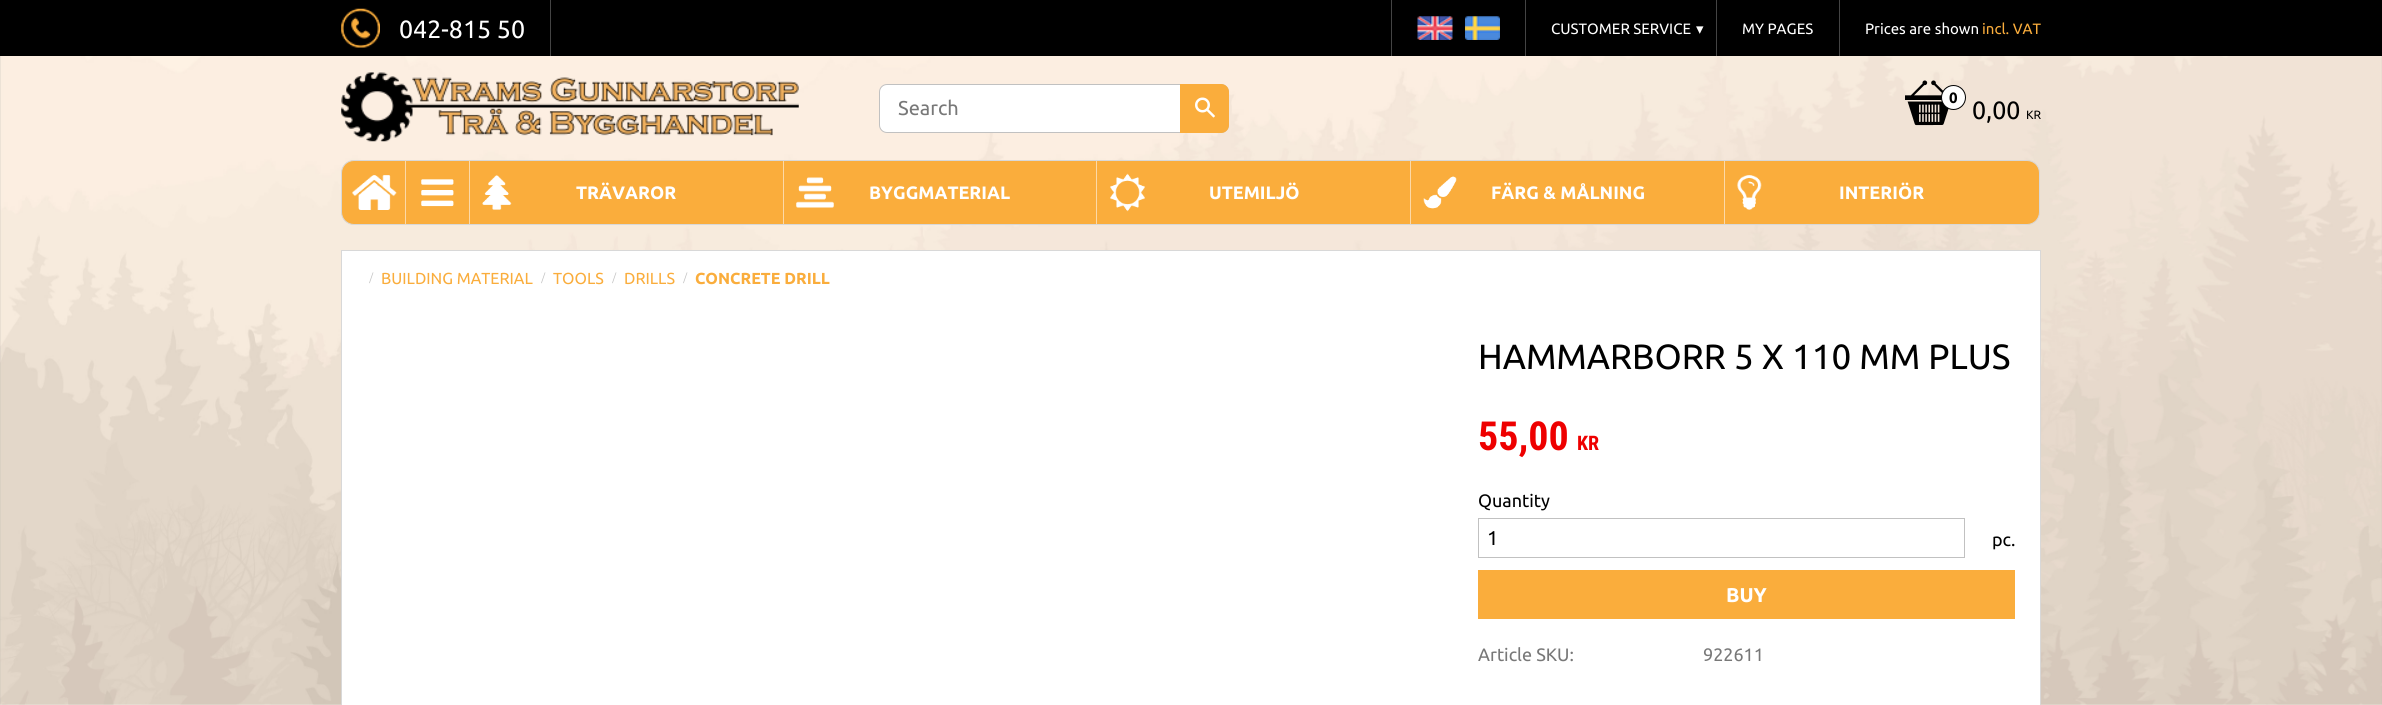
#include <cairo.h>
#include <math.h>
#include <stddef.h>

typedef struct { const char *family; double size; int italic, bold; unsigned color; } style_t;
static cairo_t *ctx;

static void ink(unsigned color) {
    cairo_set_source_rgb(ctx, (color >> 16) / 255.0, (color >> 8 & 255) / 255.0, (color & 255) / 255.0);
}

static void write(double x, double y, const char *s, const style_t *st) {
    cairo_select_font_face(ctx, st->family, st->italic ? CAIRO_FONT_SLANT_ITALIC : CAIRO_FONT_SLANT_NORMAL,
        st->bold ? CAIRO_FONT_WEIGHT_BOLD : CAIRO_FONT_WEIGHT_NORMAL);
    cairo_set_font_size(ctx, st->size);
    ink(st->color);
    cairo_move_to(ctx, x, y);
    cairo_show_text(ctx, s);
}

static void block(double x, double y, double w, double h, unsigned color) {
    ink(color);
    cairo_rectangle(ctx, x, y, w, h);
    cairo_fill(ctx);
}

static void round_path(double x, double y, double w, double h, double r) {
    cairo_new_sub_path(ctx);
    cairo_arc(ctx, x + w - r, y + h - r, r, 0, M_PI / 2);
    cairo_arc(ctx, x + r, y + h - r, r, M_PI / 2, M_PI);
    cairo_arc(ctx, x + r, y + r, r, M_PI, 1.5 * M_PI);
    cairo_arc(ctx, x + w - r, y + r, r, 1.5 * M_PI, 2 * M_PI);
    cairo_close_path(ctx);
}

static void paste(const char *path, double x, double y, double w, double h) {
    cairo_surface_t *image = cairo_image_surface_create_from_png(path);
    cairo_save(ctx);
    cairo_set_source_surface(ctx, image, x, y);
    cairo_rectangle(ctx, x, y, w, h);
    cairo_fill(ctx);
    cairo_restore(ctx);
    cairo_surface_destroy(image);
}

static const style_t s1 = {"Ubuntu", 25, 0, 0, 0xffffff};
static const style_t s2 = {"Ubuntu", 15, 0, 0, 0xffffff};
static const style_t s3 = {"DejaVu Sans", 15, 0, 0, 0xffffff};
static const style_t s4 = {"Ubuntu", 15, 0, 0, 0xfaad3c};
static const style_t s5 = {"Ubuntu", 20, 0, 0, 0x787878};
static const style_t s6 = {"Ubuntu", 15, 0, 1, 0x000000};
static const style_t s7 = {"Ubuntu", 25, 0, 0, 0x000000};
static const style_t s8 = {"Ubuntu", 12, 0, 0, 0x000000};
static const style_t s9 = {"Ubuntu", 18, 0, 1, 0xffffff};
static const style_t s10 = {"Liberation Serif", 16, 0, 0, 0xc3c3c3};
static const style_t s11 = {"Ubuntu", 16, 0, 0, 0xfaad3c};
static const style_t s12 = {"Ubuntu", 16, 0, 1, 0xfaad3c};
static const style_t s13 = {"Ubuntu", 35, 0, 0, 0x000000};
static const style_t s14 = {"Roboto Condensed", 40, 0, 1, 0xee0000};
static const style_t s15 = {"Roboto Condensed", 20, 0, 1, 0xee0000};
static const style_t s16 = {"Ubuntu", 18, 0, 0, 0x000000};
static const style_t s17 = {"Ubuntu", 20, 0, 0, 0x000000};
static const style_t s18 = {"Ubuntu", 20, 0, 1, 0xffffff};
static const style_t s19 = {"Ubuntu", 18, 0, 0, 0x787878};

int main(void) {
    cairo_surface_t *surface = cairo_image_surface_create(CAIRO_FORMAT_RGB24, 2382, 705);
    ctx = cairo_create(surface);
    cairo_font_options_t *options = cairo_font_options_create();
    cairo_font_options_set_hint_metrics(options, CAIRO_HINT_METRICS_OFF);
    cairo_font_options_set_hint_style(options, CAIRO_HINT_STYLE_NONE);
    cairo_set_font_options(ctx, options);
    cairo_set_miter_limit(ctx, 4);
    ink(0xffffff);
    cairo_paint(ctx);
    paste("pic1.png", 0, 56, 2382, 649);
    block(0, 0, 2382, 56, 0x000000);
    block(550, 0, 1, 56, 0x444444);
    paste("pic2.png", 341, 8, 39, 40);
    write(399, 38, "042-815 50", &s1);
    block(1525, 0, 1, 56, 0x444444);
    block(1391, 0, 1, 56, 0x444444);
    paste("pic3.png", 1417, 16, 36, 24);
    paste("pic4.png", 1465, 16, 35, 24);
    block(1716, 0, 1, 56, 0x444444);
    write(1551, 34, "CUSTOMER SERVICE", &s2);
    write(1696, 34, "▾", &s3);
    block(1839, 0, 1, 56, 0x444444);
    write(1742, 34, "MY PAGES", &s2);
    write(1865, 34, "Prices are shown", &s2);
    write(1982, 34, "incl. VAT", &s4);
    ink(0xffffff);
    round_path(879.5, 84.5, 349, 48, 7.5);
    cairo_fill_preserve(ctx);
    ink(0xc1c1c1);
    cairo_set_line_width(ctx, 1);
    cairo_stroke(ctx);
    write(898, 115, "Search", &s5);
    ink(0xfaad3c);
    cairo_new_path(ctx);
    cairo_move_to(ctx, 1180, 84);
    cairo_line_to(ctx, 1221, 84);
    cairo_curve_to(ctx, 1225.5, 84, 1229, 87.5, 1229, 92);
    cairo_line_to(ctx, 1229, 125);
    cairo_curve_to(ctx, 1229, 129.5, 1225.5, 133, 1221, 133);
    cairo_line_to(ctx, 1180, 133);
    cairo_close_path(ctx);
    cairo_fill(ctx);
    paste("pic5.png", 1195, 97, 20, 21);
    paste("pic6.png", 1905, 80, 44, 46);
    ink(0xffffff);
    cairo_arc(ctx, 1953.5, 97.5, 12, 0, 2 * M_PI);
    cairo_fill_preserve(ctx);
    ink(0x000000);
    cairo_stroke(ctx);
    write(1949, 103, "0", &s6);
    write(1972, 119, "0,00", &s7);
    write(2026, 119, "KR", &s8);
    paste("pic7.png", 341, 72, 458, 70);
    ink(0xfaad3c);
    cairo_new_path(ctx);
    cairo_move_to(ctx, 354, 160.5);
    cairo_line_to(ctx, 405.5, 160.5);
    cairo_line_to(ctx, 405.5, 224.5);
    cairo_line_to(ctx, 354, 224.5);
    cairo_curve_to(ctx, 347, 224.5, 341.5, 219, 341.5, 212);
    cairo_line_to(ctx, 341.5, 173);
    cairo_curve_to(ctx, 341.5, 166, 347, 160.5, 354, 160.5);
    cairo_close_path(ctx);
    cairo_fill_preserve(ctx);
    ink(0xd8d8d8);
    cairo_stroke(ctx);
    paste("pic8.png", 352, 175, 45, 35);
    ink(0xfaad3c);
    cairo_new_path(ctx);
    cairo_move_to(ctx, 468.5, 160.5);
    cairo_line_to(ctx, 2027, 160.5);
    cairo_curve_to(ctx, 2034, 160.5, 2039.5, 166, 2039.5, 173);
    cairo_line_to(ctx, 2039.5, 212);
    cairo_curve_to(ctx, 2039.5, 219, 2034, 224.5, 2027, 224.5);
    cairo_line_to(ctx, 468.5, 224.5);
    cairo_close_path(ctx);
    cairo_fill_preserve(ctx);
    ink(0xd8d8d8);
    cairo_stroke(ctx);
    paste("pic9.png", 482, 175, 30, 35);
    block(783, 161, 1, 63, 0xfcd9a7);
    write(576, 199, "TRÄVAROR", &s9);
    paste("pic10.png", 796, 177, 38, 31);
    block(1096, 161, 1, 63, 0xfcd9a7);
    write(869, 199, "BYGGMATERIAL", &s9);
    paste("pic11.png", 1110, 173, 35, 39);
    block(1410, 161, 1, 63, 0xfcd9a7);
    write(1209, 199, "UTEMILJÖ", &s9);
    paste("pic12.png", 1423, 176, 34, 33);
    block(1724, 161, 1, 63, 0xfcd9a7);
    write(1491, 199, "FÄRG & MÅLNING", &s9);
    paste("pic13.png", 1737, 175, 25, 35);
    write(1839, 199, "INTERIÖR", &s9);
    block(406, 161, 63, 63, 0xfaad3c);
    block(405, 160, 65, 1, 0xd8d8d8);
    block(469, 160, 1, 65, 0xfcd9a7);
    block(405, 224, 65, 1, 0xd8d8d8);
    block(405, 160, 1, 65, 0xfcd9a7);
    paste("pic14.png", 421, 179, 33, 28);
    ink(0xffffff);
    cairo_rectangle(ctx, 341.5, 250.5, 1699, 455);
    cairo_fill_preserve(ctx);
    ink(0xd8d8d8);
    cairo_stroke(ctx);
    write(369, 283, "/", &s10);
    write(381, 284, "BUILDING MATERIAL", &s11);
    write(541, 283, "/", &s10);
    write(553, 284, "TOOLS", &s11);
    write(612, 283, "/", &s10);
    write(624, 284, "DRILLS", &s11);
    write(683, 283, "/", &s10);
    write(695, 284, "CONCRETE DRILL", &s12);
    write(1478, 369, "HAMMARBORR 5 X 110 MM PLUS", &s13);
    write(1478, 450, "55,00", &s14);
    write(1577, 450, "KR", &s15);
    write(1478, 507, "Quantity", &s16);
    cairo_rectangle(ctx, 1478.5, 518.5, 486, 39);
    ink(0xc1c1c1);
    cairo_stroke(ctx);
    write(1487, 545, "1", &s17);
    write(1992, 546, "pc.", &s16);
    block(1478, 570, 537, 49, 0xfaad3c);
    write(1726, 602, "BUY", &s18);
    write(1478, 661, "Article SKU:", &s19);
    write(1703, 661, "922611", &s19);
    cairo_surface_write_to_png(surface, "screenshot.png");
    cairo_font_options_destroy(options);
    cairo_destroy(ctx);
    cairo_surface_destroy(surface);
    return 0;
}
